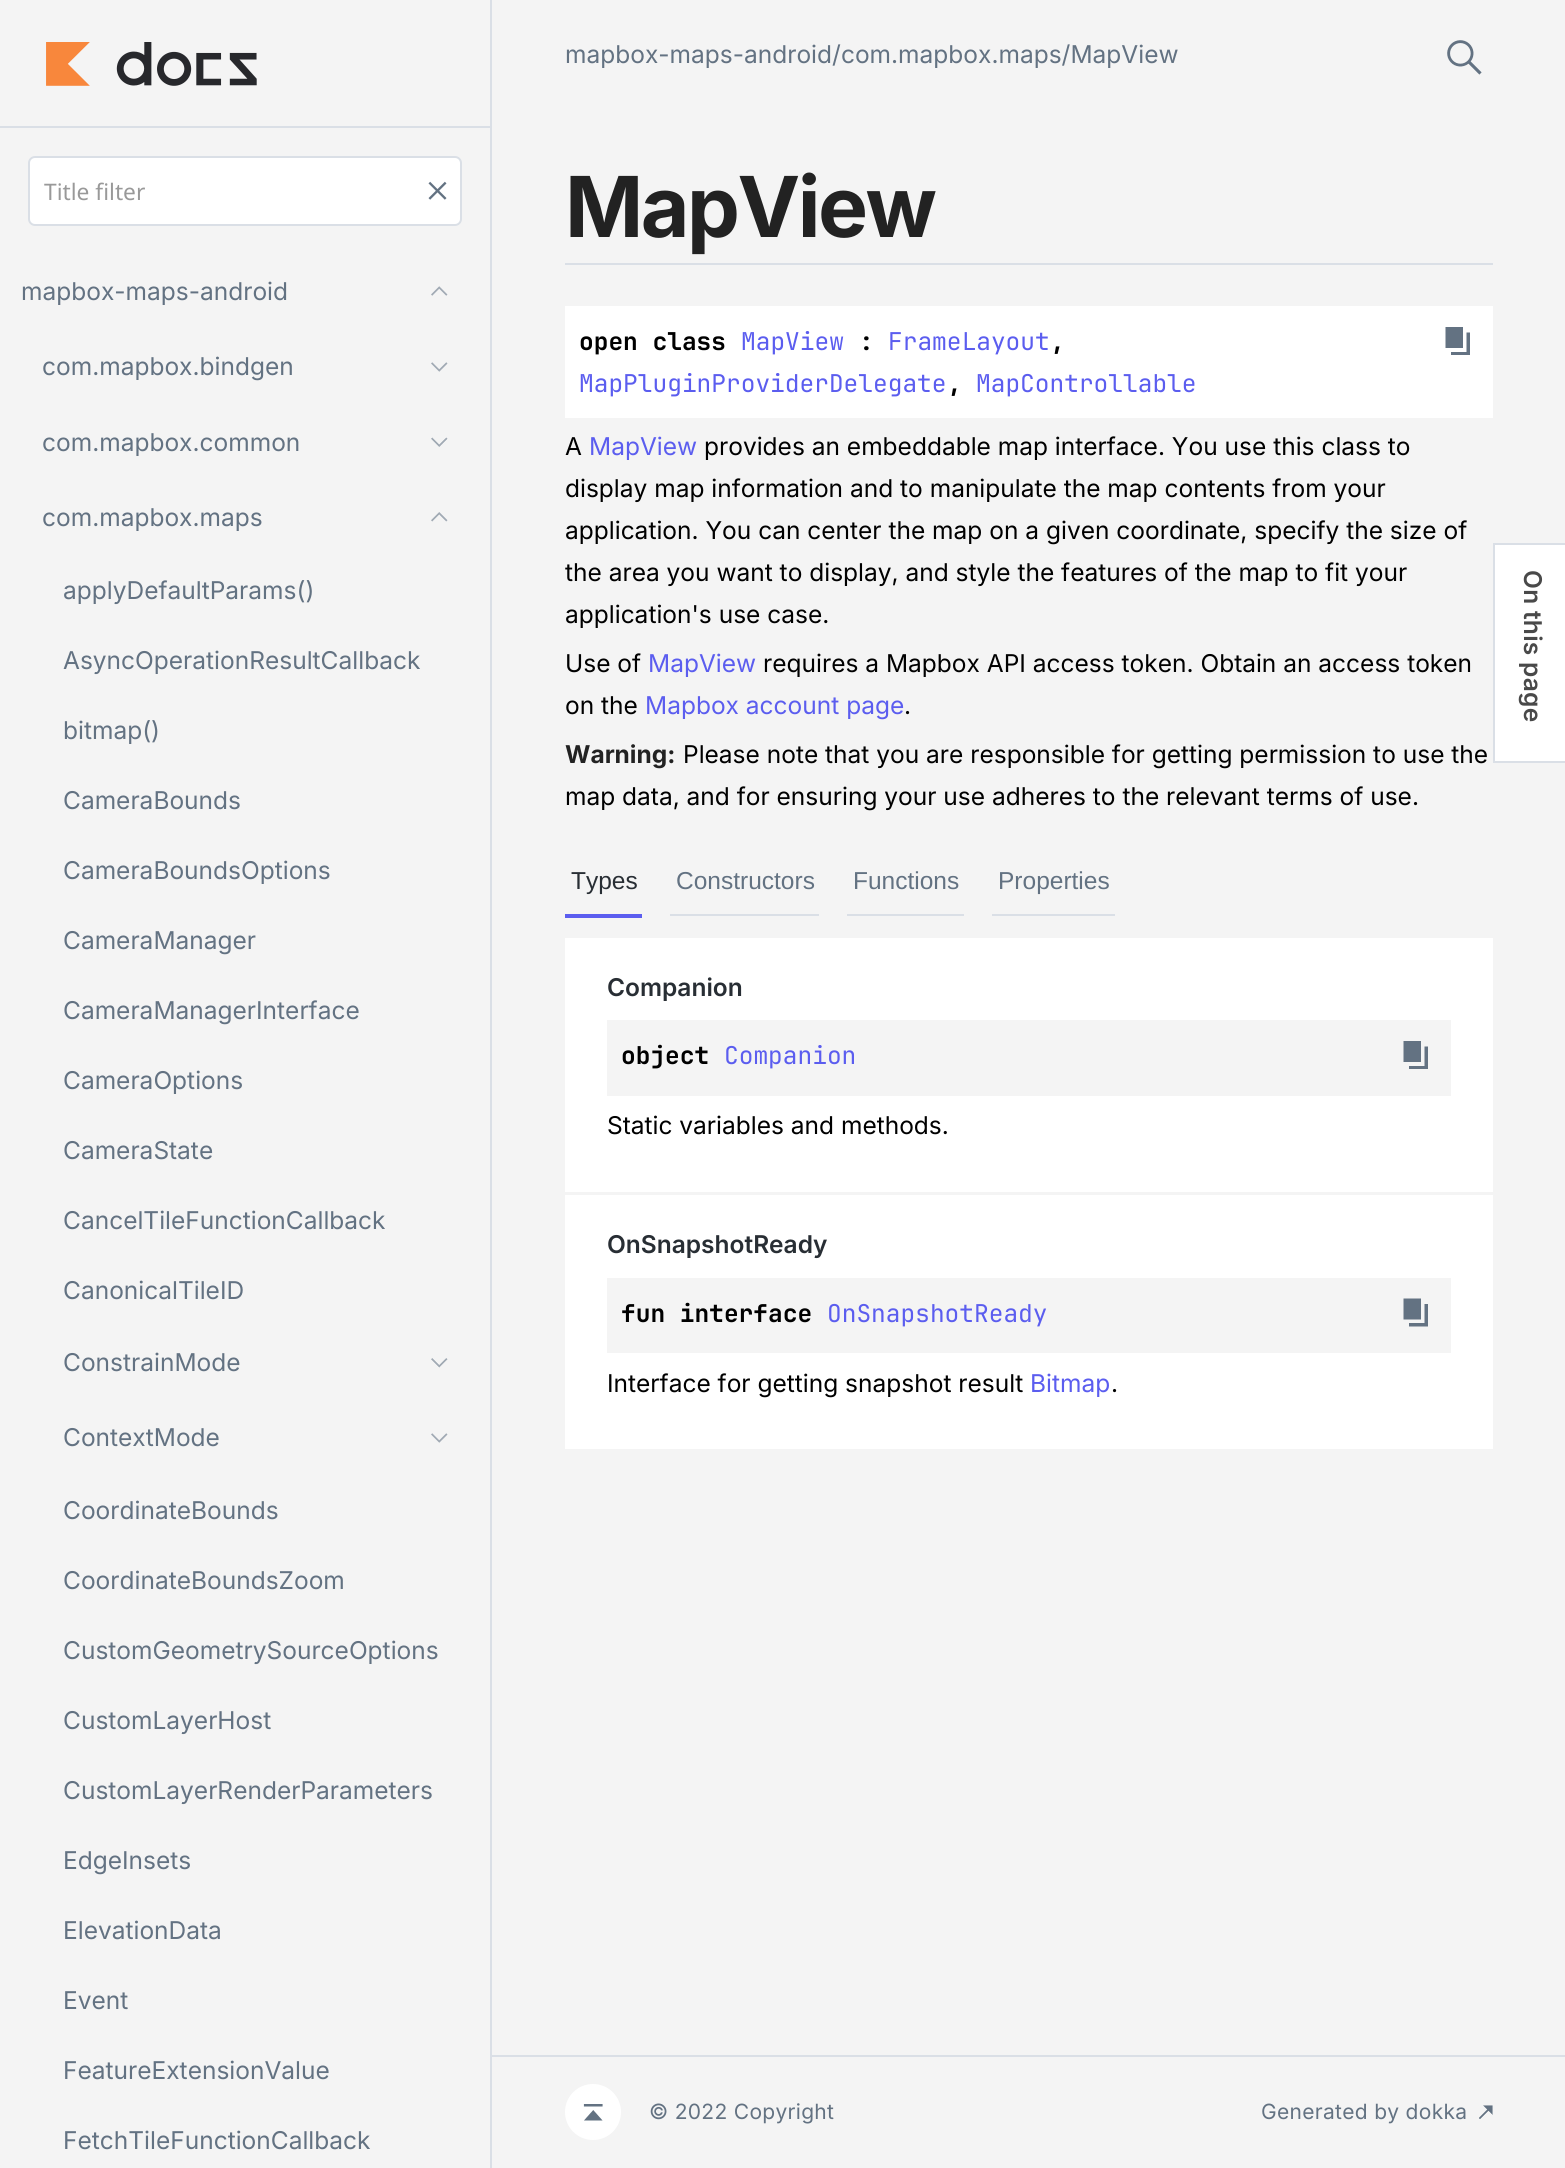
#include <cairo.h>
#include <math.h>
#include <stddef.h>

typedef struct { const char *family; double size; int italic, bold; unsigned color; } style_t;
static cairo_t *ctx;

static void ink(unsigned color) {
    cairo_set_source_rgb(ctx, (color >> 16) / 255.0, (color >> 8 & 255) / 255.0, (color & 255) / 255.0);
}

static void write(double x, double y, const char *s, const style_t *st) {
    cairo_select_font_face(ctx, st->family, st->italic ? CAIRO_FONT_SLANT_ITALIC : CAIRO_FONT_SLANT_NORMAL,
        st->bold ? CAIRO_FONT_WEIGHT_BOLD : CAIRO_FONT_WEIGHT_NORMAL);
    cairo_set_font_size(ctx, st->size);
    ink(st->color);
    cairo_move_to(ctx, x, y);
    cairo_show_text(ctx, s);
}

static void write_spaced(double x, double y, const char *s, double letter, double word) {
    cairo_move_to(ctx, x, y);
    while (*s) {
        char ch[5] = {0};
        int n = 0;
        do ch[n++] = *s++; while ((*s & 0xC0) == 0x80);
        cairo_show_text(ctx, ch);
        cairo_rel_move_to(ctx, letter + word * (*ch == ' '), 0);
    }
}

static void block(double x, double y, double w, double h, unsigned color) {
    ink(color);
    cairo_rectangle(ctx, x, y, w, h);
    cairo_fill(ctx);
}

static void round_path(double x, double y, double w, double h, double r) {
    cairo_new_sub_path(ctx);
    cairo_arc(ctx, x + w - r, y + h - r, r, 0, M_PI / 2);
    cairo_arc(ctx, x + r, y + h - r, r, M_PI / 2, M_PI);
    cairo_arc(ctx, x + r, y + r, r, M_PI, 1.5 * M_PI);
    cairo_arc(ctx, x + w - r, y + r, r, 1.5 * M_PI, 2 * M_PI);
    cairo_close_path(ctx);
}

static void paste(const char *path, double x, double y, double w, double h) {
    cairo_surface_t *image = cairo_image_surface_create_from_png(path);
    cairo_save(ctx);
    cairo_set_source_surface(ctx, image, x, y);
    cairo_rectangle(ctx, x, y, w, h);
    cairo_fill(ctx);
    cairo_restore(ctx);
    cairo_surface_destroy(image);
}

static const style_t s1 = {"Noto Sans", 22.75, 0, 0, 0x999999};
static const style_t s2 = {"Inter", 24.5, 0, 0, 0x637282};
static const style_t s3 = {"JetBrains Mono", 24.5, 0, 1, 0x000000};
static const style_t s4 = {"JetBrains Mono", 24.5, 0, 0, 0x5b5def};
static const style_t s5 = {"Inter", 24.5, 0, 0, 0x000000};
static const style_t s6 = {"Inter", 24.5, 0, 0, 0x5b5def};
static const style_t s7 = {"Inter", 24.5, 0, 1, 0x222222};
static const style_t s8 = {"Inter SemiBold", 24.5, 0, 0, 0x282e34};
static const style_t s9 = {"Liberation Sans", 24.5, 0, 0, 0x282e34};
static const style_t s10 = {"Liberation Sans", 24.5, 0, 0, 0x637282};

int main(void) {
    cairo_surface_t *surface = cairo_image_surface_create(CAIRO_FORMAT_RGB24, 1565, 2168);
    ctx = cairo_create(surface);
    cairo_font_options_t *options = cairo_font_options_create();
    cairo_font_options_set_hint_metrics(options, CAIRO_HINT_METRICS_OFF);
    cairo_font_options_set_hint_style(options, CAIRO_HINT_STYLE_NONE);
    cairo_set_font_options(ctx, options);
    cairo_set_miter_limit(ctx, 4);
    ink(0xf4f4f4);
    cairo_paint(ctx);
    block(490, 0, 2, 2168, 0xdadfe6);
    paste("pic1.png", 46, 42, 211, 44);
    block(0, 126, 490, 2, 0xdadfe6);
    ink(0xffffff);
    round_path(29, 157, 432, 68, 6);
    cairo_fill_preserve(ctx);
    ink(0xdadfe6);
    cairo_stroke(ctx);
    write(44, 200, "Title filter", &s1);
    paste("pic2.png", 428, 181, 19, 19);
    write(21, 300, "mapbox-maps-android", &s2);
    paste("pic3.png", 431, 286, 17, 10);
    write(42, 375, "com.mapbox.bindgen", &s2);
    paste("pic4.png", 431, 362, 17, 10);
    write(42, 451, "com.mapbox.common", &s2);
    paste("pic5.png", 431, 437, 17, 10);
    write(42, 526, "com.mapbox.maps", &s2);
    paste("pic6.png", 431, 512, 17, 10);
    write(63, 599, "applyDefaultParams()", &s2);
    write(63, 669, "AsyncOperationResultCallback", &s2);
    write(63, 739, "bitmap()", &s2);
    write(63, 809, "CameraBounds", &s2);
    write(63, 879, "CameraBoundsOptions", &s2);
    write(63, 949, "CameraManager", &s2);
    write(63, 1019, "CameraManagerInterface", &s2);
    write(63, 1089, "CameraOptions", &s2);
    write(63, 1159, "CameraState", &s2);
    write(63, 1229, "CancelTileFunctionCallback", &s2);
    write(63, 1299, "CanonicalTileID", &s2);
    write(63, 1371, "ConstrainMode", &s2);
    paste("pic7.png", 431, 1358, 17, 10);
    write(63, 1446, "ContextMode", &s2);
    paste("pic4.png", 431, 1433, 17, 10);
    write(63, 1519, "CoordinateBounds", &s2);
    write(63, 1589, "CoordinateBoundsZoom", &s2);
    write(63, 1659, "CustomGeometrySourceOptions", &s2);
    write(63, 1729, "CustomLayerHost", &s2);
    write(63, 1799, "CustomLayerRenderParameters", &s2);
    write(63, 1869, "EdgeInsets", &s2);
    write(63, 1939, "ElevationData", &s2);
    write(63, 2009, "Event", &s2);
    write(63, 2079, "FeatureExtensionValue", &s2);
    write(63, 2149, "FetchTileFunctionCallback", &s2);
    write(565, 63, "mapbox-maps-android/com.mapbox.maps/MapView", &s2);
    paste("pic8.png", 1447, 40, 35, 35);
    block(565, 263, 928, 2, 0xdadfe6);
    cairo_select_font_face(ctx, "Inter", CAIRO_FONT_SLANT_NORMAL, CAIRO_FONT_WEIGHT_BOLD);
    cairo_set_font_size(ctx, 84);
    ink(0x222222);
    write_spaced(565, 237, "MapView", -2.5, 0);
    block(565, 306, 928, 112, 0xffffff);
    write(579, 350, "open class", &s3);
    write(741, 350, "MapView", &s4);
    write(859, 350, ":", &s3);
    write(888, 350, "FrameLayout", &s4);
    write(1050, 350, ",", &s3);
    ink(0x637282);
    cairo_set_fill_rule(ctx, CAIRO_FILL_RULE_EVEN_ODD);
    cairo_new_path(ctx);
    cairo_move_to(ctx, 1445.5, 327);
    cairo_line_to(ctx, 1463, 327);
    cairo_line_to(ctx, 1463, 348);
    cairo_line_to(ctx, 1445.5, 348);
    cairo_close_path(ctx);
    cairo_move_to(ctx, 1466.5, 332.5);
    cairo_line_to(ctx, 1470, 332.5);
    cairo_line_to(ctx, 1470, 355);
    cairo_line_to(ctx, 1451, 355);
    cairo_line_to(ctx, 1451, 352);
    cairo_line_to(ctx, 1466.5, 352);
    cairo_close_path(ctx);
    cairo_fill(ctx);
    write(579, 392, "MapPluginProviderDelegate", &s4);
    write(947, 392, ",", &s3);
    write(976, 392, "MapControllable", &s4);
    write(565, 455, "A", &s5);
    write(589, 455, "MapView", &s6);
    write(704, 455, "provides an embeddable map interface. You use this class to", &s5);
    write(565, 497, "display map information and to manipulate the map contents from your", &s5);
    write(565, 539, "application. You can center the map on a given coordinate, specify the size of", &s5);
    write(565, 581, "the area you want to display, and style the features of the map to fit your", &s5);
    write(565, 623, "application's use case.", &s5);
    write(565, 672, "Use of", &s5);
    write(648, 672, "MapView", &s6);
    write(763, 672, "requires a Mapbox API access token. Obtain an access token", &s5);
    write(565, 714, "on the", &s5);
    write(645, 714, "Mapbox account page", &s6);
    write(904, 714, ".", &s5);
    write(565, 763, "Warning:", &s7);
    write(683, 763, "Please note that you are responsible for getting permission to use the", &s5);
    write(565, 805, "map data, and for ensuring your use adheres to the relevant terms of use.", &s5);
    block(565, 938, 928, 254, 0xffffff);
    cairo_rectangle(ctx, 1494, 544, 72, 218);
    cairo_fill_preserve(ctx);
    ink(0xdadfe6);
    cairo_stroke(ctx);
    cairo_select_font_face(ctx, "Inter SemiBold", CAIRO_FONT_SLANT_NORMAL, CAIRO_FONT_WEIGHT_NORMAL);
    ink(0x494949);
    cairo_save(ctx);
    cairo_translate(ctx, 1524, 570);
    cairo_rotate(ctx, 90 * M_PI / 180);
    write_spaced(0, 0, "On this page", 0.3, 0);
    cairo_restore(ctx);
    write(607, 996, "Companion", &s8);
    block(607, 1020, 844, 76, 0xf4f4f4);
    write(621, 1064, "object", &s3);
    write(724, 1064, "Companion", &s4);
    ink(0x637282);
    cairo_new_path(ctx);
    cairo_move_to(ctx, 1403.5, 1041);
    cairo_line_to(ctx, 1421, 1041);
    cairo_line_to(ctx, 1421, 1062);
    cairo_line_to(ctx, 1403.5, 1062);
    cairo_close_path(ctx);
    cairo_move_to(ctx, 1424.5, 1046.5);
    cairo_line_to(ctx, 1428, 1046.5);
    cairo_line_to(ctx, 1428, 1069);
    cairo_line_to(ctx, 1409, 1069);
    cairo_line_to(ctx, 1409, 1066);
    cairo_line_to(ctx, 1424.5, 1066);
    cairo_close_path(ctx);
    cairo_fill(ctx);
    write(607, 1134, "Static variables and methods.", &s5);
    block(565, 1195, 928, 254, 0xffffff);
    write(607, 1253, "OnSnapshotReady", &s8);
    block(607, 1278, 844, 75, 0xf4f4f4);
    write(621, 1322, "fun interface", &s3);
    write(827, 1322, "OnSnapshotReady", &s4);
    ink(0x637282);
    cairo_new_path(ctx);
    cairo_move_to(ctx, 1403.5, 1298.5);
    cairo_line_to(ctx, 1421, 1298.5);
    cairo_line_to(ctx, 1421, 1319.5);
    cairo_line_to(ctx, 1403.5, 1319.5);
    cairo_close_path(ctx);
    cairo_move_to(ctx, 1424.5, 1304);
    cairo_line_to(ctx, 1428, 1304);
    cairo_line_to(ctx, 1428, 1326.5);
    cairo_line_to(ctx, 1409, 1326.5);
    cairo_line_to(ctx, 1409, 1323);
    cairo_line_to(ctx, 1424.5, 1323);
    cairo_close_path(ctx);
    cairo_fill(ctx);
    write(607, 1392, "Interface for getting snapshot result", &s5);
    write(1030, 1392, "Bitmap", &s6);
    write(1111, 1392, ".", &s5);
    block(565, 914, 77, 4, 0x5b5def);
    write(571, 889, "Types", &s9);
    block(670, 914, 149, 2, 0xdadfe6);
    write(676, 889, "Constructors", &s10);
    block(847, 914, 117, 2, 0xdadfe6);
    write(853, 889, "Functions", &s10);
    block(992, 914, 123, 2, 0xdadfe6);
    write(998, 889, "Properties", &s10);
    block(492, 2055, 1073, 2, 0xdadfe6);
    ink(0xffffff);
    cairo_new_path(ctx);
    cairo_arc(ctx, 593, 2112, 28, 0, 2 * M_PI);
    cairo_fill(ctx);
    paste("pic9.png", 583, 2104, 20, 17);
    cairo_select_font_face(ctx, "Inter", CAIRO_FONT_SLANT_NORMAL, CAIRO_FONT_WEIGHT_NORMAL);
    cairo_set_font_size(ctx, 21);
    ink(0x637282);
    write_spaced(649, 2119, "© 2022 Copyright", 0.3, 0);
    write_spaced(1261, 2119, "Generated by dokka", 0.3, 0);
    paste("pic10.png", 1479, 2105, 14, 14);
    cairo_surface_write_to_png(surface, "screenshot.png");
    cairo_font_options_destroy(options);
    cairo_destroy(ctx);
    cairo_surface_destroy(surface);
    return 0;
}
